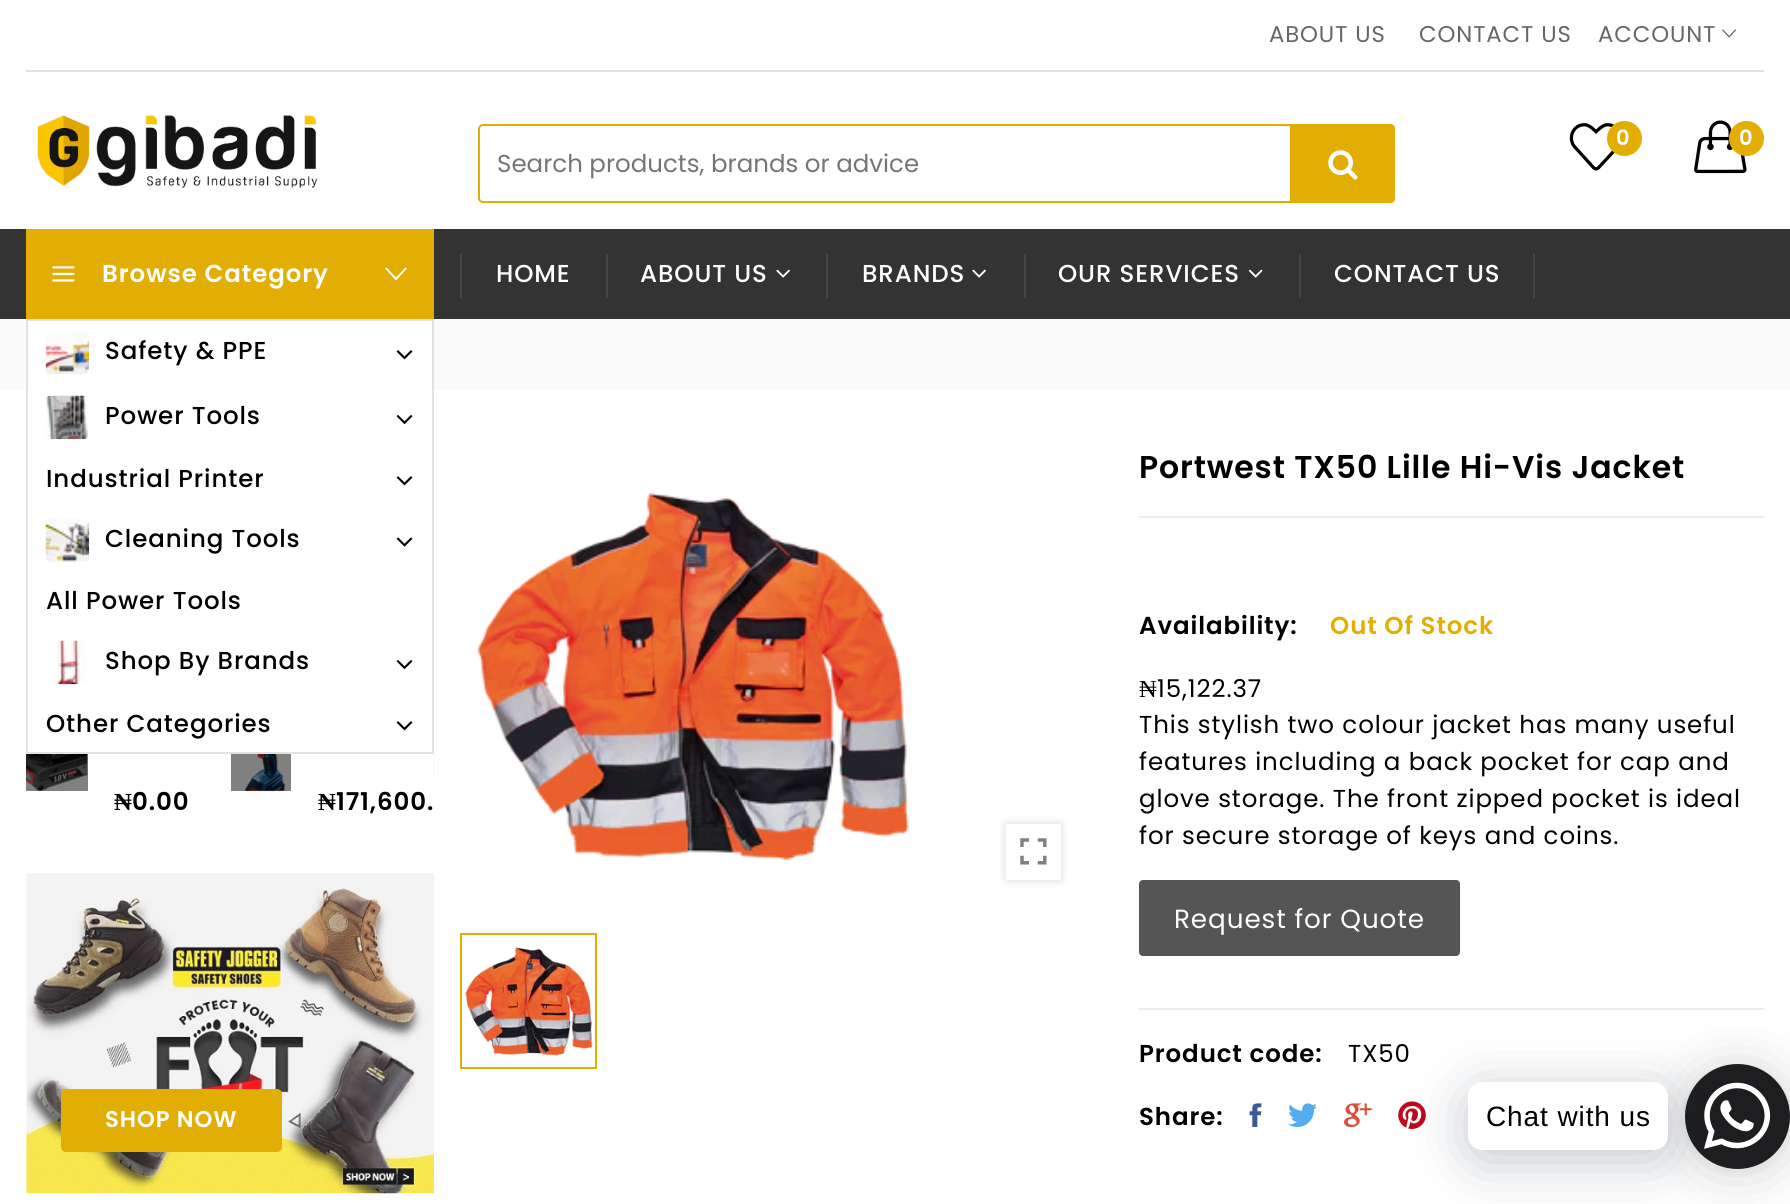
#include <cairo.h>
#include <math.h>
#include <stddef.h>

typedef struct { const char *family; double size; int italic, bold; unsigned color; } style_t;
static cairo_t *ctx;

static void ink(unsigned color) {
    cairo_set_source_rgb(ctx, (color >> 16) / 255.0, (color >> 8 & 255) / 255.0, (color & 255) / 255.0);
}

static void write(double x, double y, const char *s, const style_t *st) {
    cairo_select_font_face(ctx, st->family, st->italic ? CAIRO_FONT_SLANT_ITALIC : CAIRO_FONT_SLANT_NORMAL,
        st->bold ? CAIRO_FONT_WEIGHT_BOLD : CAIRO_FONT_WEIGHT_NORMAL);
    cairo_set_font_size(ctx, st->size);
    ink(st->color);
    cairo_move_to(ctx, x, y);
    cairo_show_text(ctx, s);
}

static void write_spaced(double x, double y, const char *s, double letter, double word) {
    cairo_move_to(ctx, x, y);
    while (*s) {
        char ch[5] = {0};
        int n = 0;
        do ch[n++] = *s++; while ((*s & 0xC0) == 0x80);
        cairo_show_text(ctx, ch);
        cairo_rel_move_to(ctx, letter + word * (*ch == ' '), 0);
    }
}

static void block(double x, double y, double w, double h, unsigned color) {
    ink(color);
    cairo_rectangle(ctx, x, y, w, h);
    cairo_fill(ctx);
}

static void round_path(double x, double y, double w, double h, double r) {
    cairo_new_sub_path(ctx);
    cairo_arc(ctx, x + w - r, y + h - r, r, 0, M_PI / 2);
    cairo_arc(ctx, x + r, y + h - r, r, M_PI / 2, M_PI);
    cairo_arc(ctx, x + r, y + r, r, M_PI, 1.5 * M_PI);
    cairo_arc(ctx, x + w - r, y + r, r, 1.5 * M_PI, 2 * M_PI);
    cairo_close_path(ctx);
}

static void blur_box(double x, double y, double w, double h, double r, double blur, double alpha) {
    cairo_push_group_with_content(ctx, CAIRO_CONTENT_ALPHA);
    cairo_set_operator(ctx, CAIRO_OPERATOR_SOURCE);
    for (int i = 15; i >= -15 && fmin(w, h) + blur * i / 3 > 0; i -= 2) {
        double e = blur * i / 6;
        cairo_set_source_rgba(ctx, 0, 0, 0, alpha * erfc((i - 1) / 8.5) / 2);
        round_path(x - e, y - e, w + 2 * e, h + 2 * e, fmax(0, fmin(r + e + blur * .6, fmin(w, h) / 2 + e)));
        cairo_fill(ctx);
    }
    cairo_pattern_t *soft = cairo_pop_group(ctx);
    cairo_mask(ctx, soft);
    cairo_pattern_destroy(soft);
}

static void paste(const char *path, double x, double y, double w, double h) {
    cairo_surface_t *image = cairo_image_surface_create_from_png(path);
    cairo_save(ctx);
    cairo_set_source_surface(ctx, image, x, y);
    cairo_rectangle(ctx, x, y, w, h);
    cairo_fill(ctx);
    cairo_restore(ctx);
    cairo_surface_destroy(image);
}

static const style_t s1 = {"Poppins", 24.5, 0, 0, 0x757575};

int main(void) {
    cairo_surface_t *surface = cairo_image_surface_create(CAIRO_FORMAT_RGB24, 1790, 1204);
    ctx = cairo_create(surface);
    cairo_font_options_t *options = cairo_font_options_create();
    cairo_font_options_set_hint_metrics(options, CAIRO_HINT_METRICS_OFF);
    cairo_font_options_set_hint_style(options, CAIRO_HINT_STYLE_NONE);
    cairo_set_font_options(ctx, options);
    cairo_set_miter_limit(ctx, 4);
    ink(0xffffff);
    cairo_paint(ctx);
    block(231, 754, 60, 37, 0x808080);
    block(26, 754, 62, 37, 0x808080);
    block(26, 70, 1738, 2, 0xdee2e6);
    cairo_select_font_face(ctx, "Poppins", CAIRO_FONT_SLANT_NORMAL, CAIRO_FONT_WEIGHT_NORMAL);
    cairo_set_font_size(ctx, 22.75);
    ink(0x666666);
    write_spaced(1269, 42, "ABOUT US", 0.9, 0);
    write_spaced(1419, 42, "CONTACT US", 0.9, 0);
    write_spaced(1598, 42, "ACCOUNT", 0.9, 0);
    paste("pic1.png", 1722, 29, 15, 9);
    paste("pic2.png", 37, 115, 281, 73);
    paste("pic3.png", 1569, 123, 46, 48);
    ink(0xe3ae03);
    cairo_arc(ctx, 1624.5, 138.5, 17.5, 0, 2 * M_PI);
    cairo_fill(ctx);
    cairo_select_font_face(ctx, "Poppins SemiBold", CAIRO_FONT_SLANT_NORMAL, CAIRO_FONT_WEIGHT_NORMAL);
    cairo_set_font_size(ctx, 21);
    ink(0xffffff);
    write_spaced(1616, 145, "0", 0.9, 0);
    paste("pic4.png", 1694, 120, 53, 54);
    ink(0xe3ae03);
    cairo_arc(ctx, 1746.5, 138.5, 17.5, 0, 2 * M_PI);
    cairo_fill(ctx);
    ink(0xffffff);
    write_spaced(1739, 145, "0", 0.9, 0);
    round_path(479, 125, 915, 77, 4);
    ink(0xe3ae03);
    cairo_stroke(ctx);
    write(497, 172, "Search products, brands or advice", &s1);
    ink(0xe3ae03);
    cairo_new_path(ctx);
    cairo_move_to(ctx, 1290, 124);
    cairo_line_to(ctx, 1390, 124);
    cairo_curve_to(ctx, 1393, 124, 1395, 126, 1395, 129);
    cairo_line_to(ctx, 1395, 198);
    cairo_curve_to(ctx, 1395, 201, 1393, 203, 1390, 203);
    cairo_line_to(ctx, 1290, 203);
    cairo_close_path(ctx);
    cairo_fill(ctx);
    paste("pic5.png", 1328, 150, 30, 30);
    block(0, 229, 1790, 90, 0x333333);
    block(26, 229, 408, 90, 0xe3ae03);
    paste("pic6.png", 52, 266, 23, 16);
    cairo_select_font_face(ctx, "Poppins SemiBold", CAIRO_FONT_SLANT_NORMAL, CAIRO_FONT_WEIGHT_NORMAL);
    ink(0xffffff);
    write_spaced(102, 282, "Browse Category", 0.9, 0);
    cairo_new_path(ctx);
    cairo_move_to(ctx, 405.5, 267.5);
    cairo_line_to(ctx, 407, 268.5);
    cairo_line_to(ctx, 396, 280.5);
    cairo_line_to(ctx, 385, 268.5);
    cairo_line_to(ctx, 386.5, 267.5);
    cairo_line_to(ctx, 396, 277.5);
    cairo_close_path(ctx);
    cairo_fill(ctx);
    block(0, 319, 1790, 71, 0xfafafa);
    block(28, 321, 404, 69, 0xffffff);
    cairo_rectangle(ctx, 27, 320, 406, 433);
    ink(0xe2e2e2);
    cairo_stroke(ctx);
    paste("pic7.png", 45, 331, 45, 43);
    cairo_select_font_face(ctx, "Poppins Medium", CAIRO_FONT_SLANT_NORMAL, CAIRO_FONT_WEIGHT_NORMAL);
    ink(0x000000);
    write_spaced(105, 359, "Safety & PPE", 0.9, 0);
    paste("pic8.png", 396, 350, 17, 10);
    paste("pic9.png", 46, 395, 43, 45);
    write_spaced(105, 424, "Power Tools", 0.9, 0);
    paste("pic10.png", 396, 415, 17, 9);
    write_spaced(46, 487, "Industrial Printer", 0.9, 0);
    paste("pic8.png", 396, 476, 17, 10);
    paste("pic11.png", 45, 518, 45, 44);
    write_spaced(105, 547, "Cleaning Tools", 0.9, 0);
    paste("pic12.png", 396, 537, 17, 10);
    write_spaced(46, 609, "All Power Tools", 0.9, 0);
    paste("pic13.png", 52, 640, 34, 45);
    write_spaced(105, 669, "Shop By Brands", 0.9, 0);
    paste("pic10.png", 396, 660, 17, 9);
    write_spaced(46, 732, "Other Categories", 0.9, 0);
    paste("pic8.png", 396, 721, 17, 10);
    block(460, 254, 2, 44, 0x454545);
    ink(0xffffff);
    write_spaced(496, 282, "HOME", 0.9, 0);
    block(606, 254, 2, 44, 0x454545);
    ink(0xffffff);
    write_spaced(640, 282, "ABOUT US", 0.9, 0);
    paste("pic14.png", 776, 269, 14, 9);
    block(826, 254, 2, 44, 0x454545);
    ink(0xffffff);
    write_spaced(862, 282, "BRANDS", 0.9, 0);
    paste("pic14.png", 972, 269, 14, 9);
    block(1024, 254, 2, 44, 0x454545);
    ink(0xffffff);
    write_spaced(1058, 282, "OUR SERVICES", 0.9, 0);
    paste("pic15.png", 1248, 269, 15, 9);
    block(1299, 254, 2, 44, 0x454545);
    ink(0xffffff);
    write_spaced(1334, 282, "CONTACT US", 0.9, 0);
    block(1533, 254, 2, 44, 0x454545);
    paste("pic16.png", 433, 754, 1, 24);
    paste("pic17.png", 26, 754, 62, 38);
    cairo_select_font_face(ctx, "Liberation Serif", CAIRO_FONT_SLANT_NORMAL, CAIRO_FONT_WEIGHT_BOLD);
    ink(0x000000);
    write_spaced(114, 810, "₦", 0.9, 0);
    cairo_select_font_face(ctx, "Poppins SemiBold", CAIRO_FONT_SLANT_NORMAL, CAIRO_FONT_WEIGHT_NORMAL);
    write_spaced(132, 810, "0.00", 0.9, 0);
    paste("pic18.png", 245, 754, 41, 38);
    cairo_select_font_face(ctx, "Liberation Serif", CAIRO_FONT_SLANT_NORMAL, CAIRO_FONT_WEIGHT_BOLD);
    write_spaced(318, 810, "₦", 0.9, 0);
    cairo_select_font_face(ctx, "Poppins SemiBold", CAIRO_FONT_SLANT_NORMAL, CAIRO_FONT_WEIGHT_NORMAL);
    write_spaced(336, 810, "171,600.", 0.9, 0);
    paste("pic19.png", 26, 873, 408, 321);
    ink(0xe3ae03);
    round_path(61, 1089, 221, 63, 5);
    cairo_fill(ctx);
    cairo_set_font_size(ctx, 22.75);
    ink(0xffffff);
    write_spaced(105, 1127, "SHOP NOW", 0.9, 0);
    paste("pic20.png", 477, 493, 432, 369);
    ink(0x000000);
    blur_box(1006, 824, 55, 56, 0, 4.5, 0.15);
    block(1006, 824, 55, 56, 0xffffff);
    paste("pic21.png", 1020, 838, 27, 27);
    paste("pic22.png", 465, 947, 128, 109);
    cairo_rectangle(ctx, 461, 934, 135, 134);
    ink(0xe3ae03);
    cairo_stroke(ctx);
    cairo_set_font_size(ctx, 31.5);
    ink(0x000000);
    write_spaced(1139, 478, "Portwest TX50 Lille Hi-Vis Jacket", 0.9, 0);
    block(1139, 516, 625, 2, 0xededed);
    cairo_set_font_size(ctx, 24.5);
    ink(0x000000);
    write_spaced(1139, 634, "Availability:", 0.9, 0);
    ink(0xe3ae03);
    write_spaced(1330, 634, "Out Of Stock", 0.9, 0);
    cairo_select_font_face(ctx, "Liberation Serif", CAIRO_FONT_SLANT_NORMAL, CAIRO_FONT_WEIGHT_NORMAL);
    ink(0x000000);
    write_spaced(1139, 697, "₦", 0.9, 0);
    cairo_select_font_face(ctx, "Poppins", CAIRO_FONT_SLANT_NORMAL, CAIRO_FONT_WEIGHT_NORMAL);
    write_spaced(1157, 697, "15,122.37", 0.9, 0);
    write_spaced(1139, 733, "This stylish two colour jacket has many useful", 0.9, 0);
    write_spaced(1139, 770, "features including a back pocket for cap and", 0.9, 0);
    write_spaced(1139, 807, "glove storage. The front zipped pocket is ideal", 0.9, 0);
    write_spaced(1139, 844, "for secure storage of keys and coins.", 0.9, 0);
    ink(0x555555);
    round_path(1139, 880, 321, 76, 4);
    cairo_fill(ctx);
    cairo_set_font_size(ctx, 26.25);
    ink(0xffffff);
    write_spaced(1174, 928, "Request for Quote", 0.9, 0);
    block(1139, 1008, 625, 2, 0xededed);
    cairo_select_font_face(ctx, "Poppins SemiBold", CAIRO_FONT_SLANT_NORMAL, CAIRO_FONT_WEIGHT_NORMAL);
    cairo_set_font_size(ctx, 24.5);
    ink(0x000000);
    write_spaced(1139, 1062, "Product code:", 0.9, 0);
    cairo_select_font_face(ctx, "Poppins", CAIRO_FONT_SLANT_NORMAL, CAIRO_FONT_WEIGHT_NORMAL);
    write_spaced(1348, 1062, "TX50", 0.9, 0);
    cairo_select_font_face(ctx, "Poppins SemiBold", CAIRO_FONT_SLANT_NORMAL, CAIRO_FONT_WEIGHT_NORMAL);
    write_spaced(1139, 1125, "Share:", 0.9, 0);
    paste("pic23.png", 1249, 1103, 13, 24);
    paste("pic24.png", 1288, 1103, 29, 24);
    paste("pic25.png", 1344, 1103, 28, 24);
    paste("pic26.png", 1398, 1101, 28, 28);
    ink(0x000000);
    blur_box(1685, 1068, 105, 105, 52.5, 28, 0.16);
    blur_box(1685, 1066, 105, 105, 52.5, 5, 0.06);
    ink(0x1e1e20);
    cairo_arc(ctx, 1737.5, 1116.5, 52.5, 0, 2 * M_PI);
    cairo_fill(ctx);
    ink(0x00122e);
    blur_box(1468, 1092, 200, 68, 14, 28, 0.24);
    ink(0xffffff);
    round_path(1468, 1082, 200, 68, 14);
    cairo_fill(ctx);
    cairo_select_font_face(ctx, "Liberation Sans", CAIRO_FONT_SLANT_NORMAL, CAIRO_FONT_WEIGHT_NORMAL);
    cairo_set_font_size(ctx, 28);
    ink(0x000000);
    write_spaced(1486, 1126, "Chat with us", 0.9, 0);
    paste("pic27.png", 1704, 1082, 67, 67);
    cairo_surface_write_to_png(surface, "screenshot.png");
    cairo_font_options_destroy(options);
    cairo_destroy(ctx);
    cairo_surface_destroy(surface);
    return 0;
}
